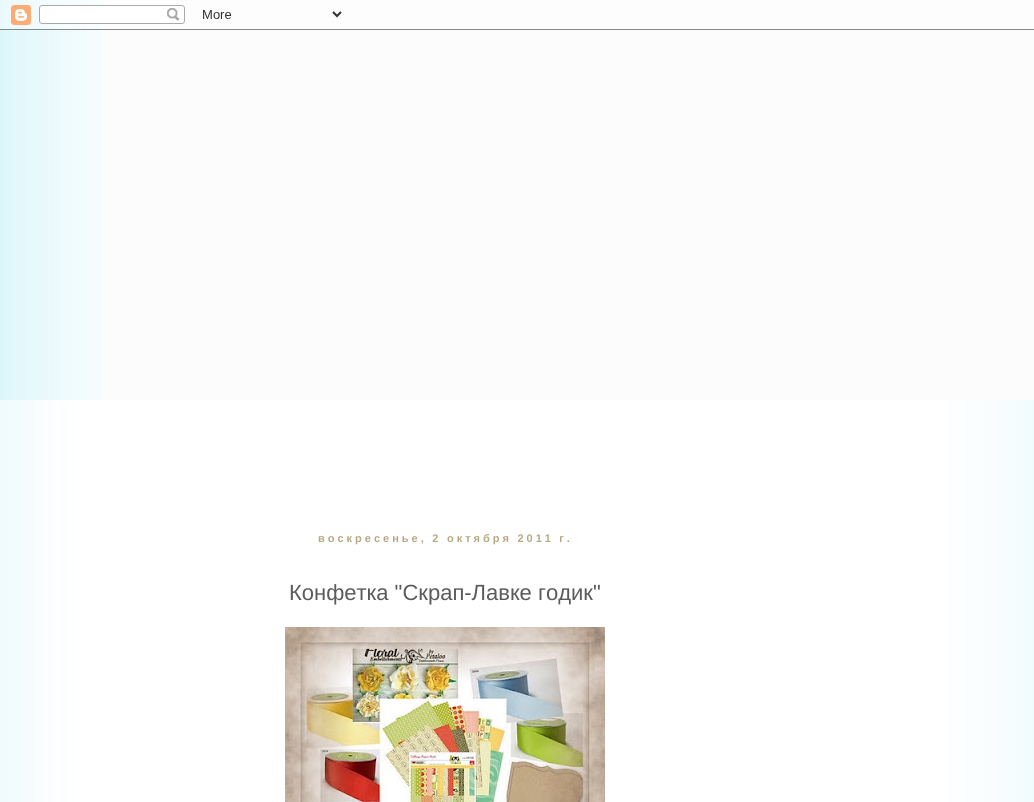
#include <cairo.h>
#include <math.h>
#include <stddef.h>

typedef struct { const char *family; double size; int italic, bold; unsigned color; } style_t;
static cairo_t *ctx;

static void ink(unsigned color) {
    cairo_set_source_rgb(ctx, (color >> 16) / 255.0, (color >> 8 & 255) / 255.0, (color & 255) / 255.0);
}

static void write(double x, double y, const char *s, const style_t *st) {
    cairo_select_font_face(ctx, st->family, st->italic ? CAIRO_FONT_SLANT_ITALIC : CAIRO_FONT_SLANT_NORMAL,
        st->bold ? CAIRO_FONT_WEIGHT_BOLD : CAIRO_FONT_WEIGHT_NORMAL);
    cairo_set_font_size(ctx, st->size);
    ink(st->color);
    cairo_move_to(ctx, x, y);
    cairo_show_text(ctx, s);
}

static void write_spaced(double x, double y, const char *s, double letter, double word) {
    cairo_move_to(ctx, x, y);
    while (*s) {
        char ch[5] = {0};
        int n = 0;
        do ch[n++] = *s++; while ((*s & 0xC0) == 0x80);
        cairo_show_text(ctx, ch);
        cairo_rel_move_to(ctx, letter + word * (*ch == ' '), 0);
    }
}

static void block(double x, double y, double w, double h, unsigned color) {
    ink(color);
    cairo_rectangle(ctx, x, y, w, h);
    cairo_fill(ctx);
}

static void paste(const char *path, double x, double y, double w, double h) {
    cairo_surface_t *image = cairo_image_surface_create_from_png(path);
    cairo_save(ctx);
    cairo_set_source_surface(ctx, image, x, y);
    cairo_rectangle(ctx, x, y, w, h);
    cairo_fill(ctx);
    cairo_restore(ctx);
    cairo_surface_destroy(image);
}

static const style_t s1 = {"Liberation Sans", 22, 0, 0, 0x5b5b5b};

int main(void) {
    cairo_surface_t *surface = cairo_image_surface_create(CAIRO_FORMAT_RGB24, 1034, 802);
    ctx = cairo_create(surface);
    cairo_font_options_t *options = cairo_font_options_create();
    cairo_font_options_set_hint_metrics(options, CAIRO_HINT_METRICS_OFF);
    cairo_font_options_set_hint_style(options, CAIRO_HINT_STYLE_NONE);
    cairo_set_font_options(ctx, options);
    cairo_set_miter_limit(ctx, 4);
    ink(0xffffff);
    cairo_paint(ctx);
    paste("pic1.png", 0, 400, 1034, 402);
    block(103, 0, 931, 400, 0xfcfcfc);
    paste("pic2.png", 0, 0, 103, 400);
    paste("pic3.png", 0, 0, 1034, 30);
    cairo_select_font_face(ctx, "Liberation Sans", CAIRO_FONT_SLANT_NORMAL, CAIRO_FONT_WEIGHT_BOLD);
    cairo_set_font_size(ctx, 11);
    ink(0xb6a882);
    write_spaced(318, 542, "воскресенье, 2 октября 2011 г.", 3, -0.5);
    write(289, 600, "Конфетка \"Скрап-Лавке годик\"", &s1);
    paste("pic4.png", 285, 627, 320, 175);
    cairo_surface_write_to_png(surface, "screenshot.png");
    cairo_font_options_destroy(options);
    cairo_destroy(ctx);
    cairo_surface_destroy(surface);
    return 0;
}
